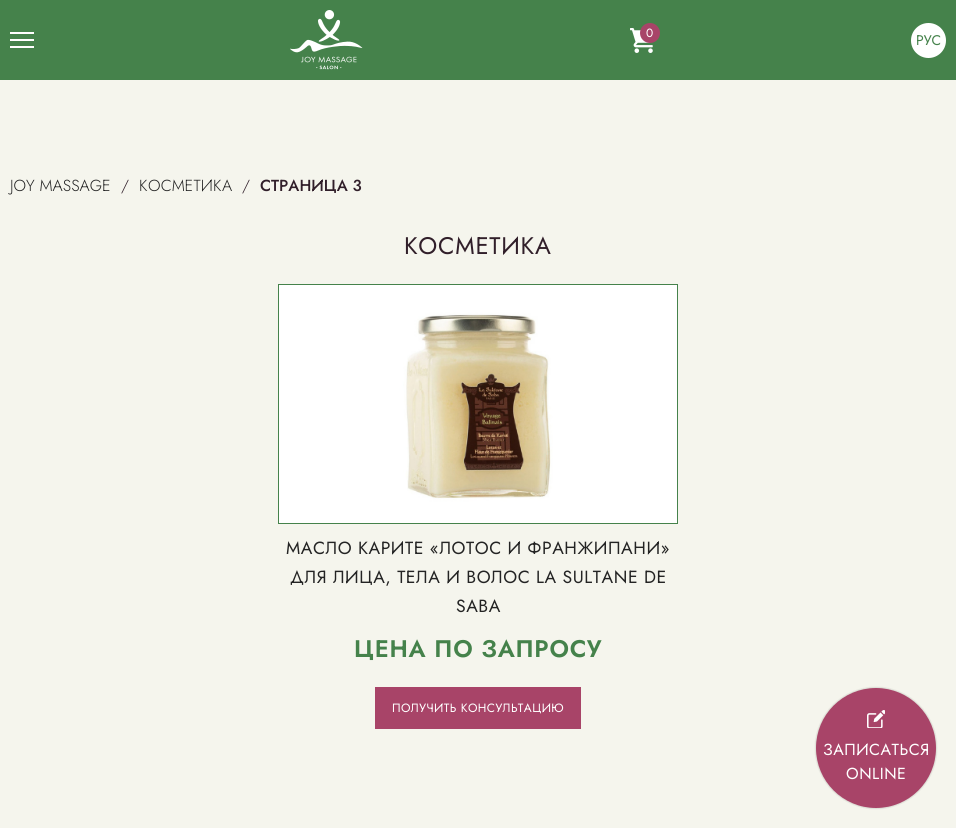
#include <cairo.h>
#include <math.h>
#include <stddef.h>

typedef struct { const char *family; double size; int italic, bold; unsigned color; } style_t;
static cairo_t *ctx;

static void ink(unsigned color) {
    cairo_set_source_rgb(ctx, (color >> 16) / 255.0, (color >> 8 & 255) / 255.0, (color & 255) / 255.0);
}

static void write(double x, double y, const char *s, const style_t *st) {
    cairo_select_font_face(ctx, st->family, st->italic ? CAIRO_FONT_SLANT_ITALIC : CAIRO_FONT_SLANT_NORMAL,
        st->bold ? CAIRO_FONT_WEIGHT_BOLD : CAIRO_FONT_WEIGHT_NORMAL);
    cairo_set_font_size(ctx, st->size);
    ink(st->color);
    cairo_move_to(ctx, x, y);
    cairo_show_text(ctx, s);
}

static void write_spaced(double x, double y, const char *s, double letter, double word) {
    cairo_move_to(ctx, x, y);
    while (*s) {
        char ch[5] = {0};
        int n = 0;
        do ch[n++] = *s++; while ((*s & 0xC0) == 0x80);
        cairo_show_text(ctx, ch);
        cairo_rel_move_to(ctx, letter + word * (*ch == ' '), 0);
    }
}

static void block(double x, double y, double w, double h, unsigned color) {
    ink(color);
    cairo_rectangle(ctx, x, y, w, h);
    cairo_fill(ctx);
}

static void round_path(double x, double y, double w, double h, double r) {
    cairo_new_sub_path(ctx);
    cairo_arc(ctx, x + w - r, y + h - r, r, 0, M_PI / 2);
    cairo_arc(ctx, x + r, y + h - r, r, M_PI / 2, M_PI);
    cairo_arc(ctx, x + r, y + r, r, M_PI, 1.5 * M_PI);
    cairo_arc(ctx, x + w - r, y + r, r, 1.5 * M_PI, 2 * M_PI);
    cairo_close_path(ctx);
}

static void blur_box(double x, double y, double w, double h, double r, double blur, double alpha) {
    cairo_push_group_with_content(ctx, CAIRO_CONTENT_ALPHA);
    cairo_set_operator(ctx, CAIRO_OPERATOR_SOURCE);
    for (int i = 15; i >= -15 && fmin(w, h) + blur * i / 3 > 0; i -= 2) {
        double e = blur * i / 6;
        cairo_set_source_rgba(ctx, 0, 0, 0, alpha * erfc((i - 1) / 8.5) / 2);
        round_path(x - e, y - e, w + 2 * e, h + 2 * e, fmax(0, fmin(r + e + blur * .6, fmin(w, h) / 2 + e)));
        cairo_fill(ctx);
    }
    cairo_pattern_t *soft = cairo_pop_group(ctx);
    cairo_mask(ctx, soft);
    cairo_pattern_destroy(soft);
}

static void paste(const char *path, double x, double y, double w, double h) {
    cairo_surface_t *image = cairo_image_surface_create_from_png(path);
    cairo_save(ctx);
    cairo_set_source_surface(ctx, image, x, y);
    cairo_rectangle(ctx, x, y, w, h);
    cairo_fill(ctx);
    cairo_restore(ctx);
    cairo_surface_destroy(image);
}

static const style_t s1 = {"Jost", 12, 0, 0, 0xffffff};
static const style_t s2 = {"Jost", 14, 0, 0, 0x45824b};
static const style_t s3 = {"Jost Light", 16, 0, 0, 0x242424};
static const style_t s4 = {"Jost Light", 16, 0, 0, 0x311f2a};
static const style_t s5 = {"Jost Medium", 16, 0, 0, 0x311f2a};

int main(void) {
    cairo_surface_t *surface = cairo_image_surface_create(CAIRO_FORMAT_RGB24, 956, 828);
    ctx = cairo_create(surface);
    cairo_font_options_t *options = cairo_font_options_create();
    cairo_font_options_set_hint_metrics(options, CAIRO_HINT_METRICS_OFF);
    cairo_font_options_set_hint_style(options, CAIRO_HINT_STYLE_NONE);
    cairo_set_font_options(ctx, options);
    cairo_set_miter_limit(ctx, 4);
    ink(0xf5f5ed);
    cairo_paint(ctx);
    block(0, 0, 956, 80, 0x45824b);
    block(10, 32, 24, 2, 0xffffff);
    block(10, 39, 24, 2, 0xffffff);
    block(10, 46, 24, 2, 0xffffff);
    paste("pic1.png", 290, 10, 73, 60);
    paste("pic2.png", 630, 28, 23, 25);
    ink(0xa84468);
    cairo_arc(ctx, 650, 33, 10, 0, 2 * M_PI);
    cairo_fill(ctx);
    write(646, 37, "0", &s1);
    cairo_new_path(ctx);
    cairo_arc(ctx, 928.5, 40.5, 17.5, 0, 2 * M_PI);
    cairo_fill(ctx);
    write(916, 45, "РУС", &s2);
    write(10, 191, "JOY MASSAGE", &s3);
    write(121, 191, "/", &s4);
    write(139, 191, "КОСМЕТИКА", &s3);
    write(242, 191, "/", &s4);
    write(260, 191, "СТРАНИЦА 3", &s5);
    cairo_select_font_face(ctx, "Jost", CAIRO_FONT_SLANT_NORMAL, CAIRO_FONT_WEIGHT_NORMAL);
    cairo_set_font_size(ctx, 24);
    write_spaced(404, 254, "КОСМЕТИКА", 0.75, 0);
    cairo_rectangle(ctx, 278.5, 284.5, 399, 239);
    ink(0x45824b);
    cairo_set_line_width(ctx, 1);
    cairo_stroke(ctx);
    paste("pic3.png", 279, 285, 398, 238);
    cairo_set_font_size(ctx, 17.6);
    ink(0x242424);
    write_spaced(286, 554, "МАСЛО КАРИТЕ «ЛОТОС И ФРАНЖИПАНИ»", 0.55, 0);
    write_spaced(290, 583, "ДЛЯ ЛИЦА, ТЕЛА И ВОЛОС LA SULTANE DE", 0.55, 0);
    write_spaced(456, 612, "SABA", 0.55, 0);
    cairo_select_font_face(ctx, "Jost SemiBold", CAIRO_FONT_SLANT_NORMAL, CAIRO_FONT_WEIGHT_NORMAL);
    cairo_set_font_size(ctx, 24);
    ink(0x45824b);
    write_spaced(354, 657, "ЦЕНА ПО ЗАПРОСУ", 0.75, 0);
    block(375, 687, 206, 42, 0xa84468);
    cairo_select_font_face(ctx, "Jost", CAIRO_FONT_SLANT_NORMAL, CAIRO_FONT_WEIGHT_NORMAL);
    cairo_set_font_size(ctx, 12);
    ink(0xffffff);
    write_spaced(392, 712, "ПОЛУЧИТЬ КОНСУЛЬТАЦИЮ", 0.4, 0);
    ink(0x000000);
    blur_box(815, 687, 122, 122, 61, 0.5, 0.1);
    ink(0xa84468);
    cairo_arc(ctx, 876, 748, 60, 0, 2 * M_PI);
    cairo_fill(ctx);
    paste("pic4.png", 867, 710, 18, 18);
    cairo_set_font_size(ctx, 16);
    ink(0xffffff);
    write_spaced(823, 755, "ЗАПИСАТЬСЯ", 0.5, 0);
    write_spaced(846, 779, "ONLINE", 0.5, 0);
    cairo_surface_write_to_png(surface, "screenshot.png");
    cairo_font_options_destroy(options);
    cairo_destroy(ctx);
    cairo_surface_destroy(surface);
    return 0;
}
